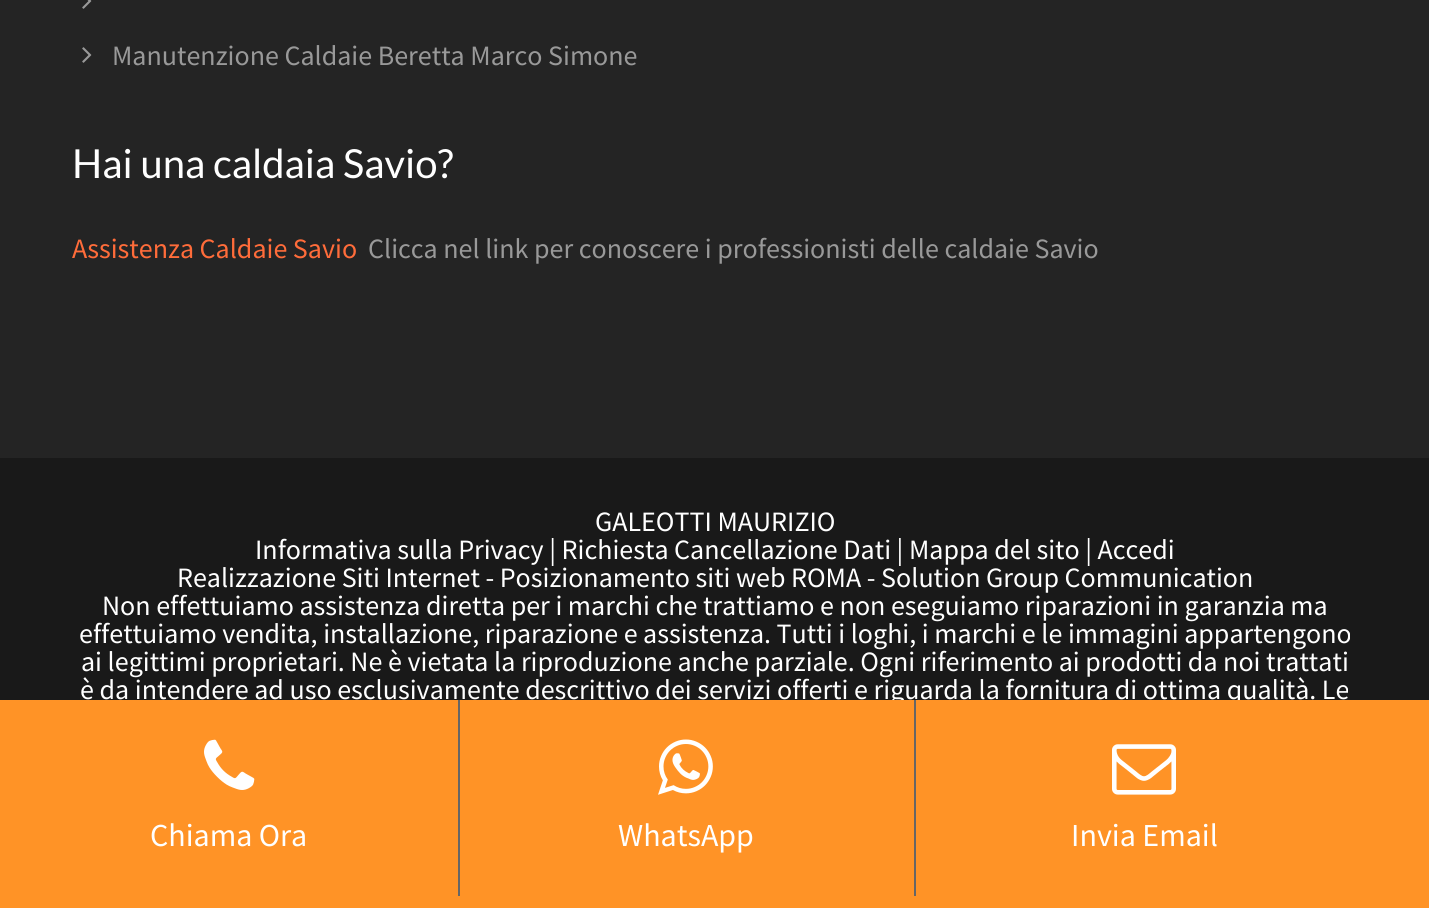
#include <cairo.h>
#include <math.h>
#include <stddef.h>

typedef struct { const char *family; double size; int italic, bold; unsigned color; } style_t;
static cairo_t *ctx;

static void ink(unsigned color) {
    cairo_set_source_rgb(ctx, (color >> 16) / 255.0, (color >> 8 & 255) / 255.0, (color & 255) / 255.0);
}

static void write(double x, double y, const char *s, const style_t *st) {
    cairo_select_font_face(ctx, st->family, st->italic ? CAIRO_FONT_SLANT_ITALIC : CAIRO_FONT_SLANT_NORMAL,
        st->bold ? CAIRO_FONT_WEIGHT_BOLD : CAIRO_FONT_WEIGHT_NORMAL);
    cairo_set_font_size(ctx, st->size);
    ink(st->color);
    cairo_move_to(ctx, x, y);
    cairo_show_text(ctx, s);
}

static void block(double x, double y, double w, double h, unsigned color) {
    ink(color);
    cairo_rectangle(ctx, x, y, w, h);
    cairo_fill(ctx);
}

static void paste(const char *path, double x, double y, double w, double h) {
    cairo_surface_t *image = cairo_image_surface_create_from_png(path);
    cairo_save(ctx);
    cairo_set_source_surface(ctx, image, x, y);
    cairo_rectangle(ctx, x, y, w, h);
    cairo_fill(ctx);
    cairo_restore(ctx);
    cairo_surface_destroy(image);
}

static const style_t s1 = {"Source Sans Pro", 28, 0, 0, 0x999999};
static const style_t s2 = {"Lato", 40, 0, 0, 0xffffff};
static const style_t s3 = {"Source Sans Pro", 28, 0, 0, 0xff6c3a};
static const style_t s4 = {"Source Sans Pro", 28, 0, 0, 0xffffff};
static const style_t s5 = {"Source Sans Pro", 32, 0, 0, 0xffffff};

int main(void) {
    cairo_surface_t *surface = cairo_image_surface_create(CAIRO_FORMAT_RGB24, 1429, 908);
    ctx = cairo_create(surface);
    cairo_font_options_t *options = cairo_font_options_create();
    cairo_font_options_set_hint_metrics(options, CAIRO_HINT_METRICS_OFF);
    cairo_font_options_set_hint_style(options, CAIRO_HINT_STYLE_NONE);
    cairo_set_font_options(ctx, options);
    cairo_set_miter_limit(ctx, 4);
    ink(0x242424);
    cairo_paint(ctx);
    paste("pic1.png", 82, 0, 10, 9);
    paste("pic2.png", 82, 47, 10, 16);
    write(112, 65, "Manutenzione Caldaie Beretta Marco Simone", &s1);
    write(72, 178, "Hai una caldaia Savio?", &s2);
    write(72, 258, "Assistenza Caldaie Savio", &s3);
    write(368, 258, "Clicca nel link per conoscere i professionisti delle caldaie Savio", &s1);
    block(0, 458, 1429, 242, 0x191919);
    write(595, 531, "GALEOTTI MAURIZIO", &s4);
    write(255, 559, "Informativa sulla Privacy | Richiesta Cancellazione Dati | Mappa del sito | Accedi", &s4);
    write(177, 587, "Realizzazione Siti Internet - Posizionamento siti web ROMA - Solution Group Communication", &s4);
    write(102, 615, "Non effettuiamo assistenza diretta per i marchi che trattiamo e non eseguiamo riparazioni in garanzia ma", &s4);
    write(79, 643, "effettuiamo vendita, installazione, riparazione e assistenza. Tutti i loghi, i marchi e le immagini appartengono", &s4);
    write(81, 671, "ai legittimi proprietari. Ne è vietata la riproduzione anche parziale. Ogni riferimento ai prodotti da noi trattati", &s4);
    write(80, 699, "è da intendere ad uso esclusivamente descrittivo dei servizi offerti e riguarda la fornitura di ottima qualità. Le", &s4);
    block(0, 700, 1429, 208, 0xff9326);
    paste("pic3.png", 204, 739, 51, 51);
    write(150, 846, "Chiama Ora", &s5);
    block(914, 700, 2, 196, 0x666666);
    block(458, 700, 2, 196, 0x666666);
    paste("pic4.png", 658, 739, 55, 56);
    write(618, 846, "WhatsApp", &s5);
    paste("pic5.png", 1112, 744, 64, 51);
    write(1071, 846, "Invia Email", &s5);
    cairo_surface_write_to_png(surface, "screenshot.png");
    cairo_font_options_destroy(options);
    cairo_destroy(ctx);
    cairo_surface_destroy(surface);
    return 0;
}
